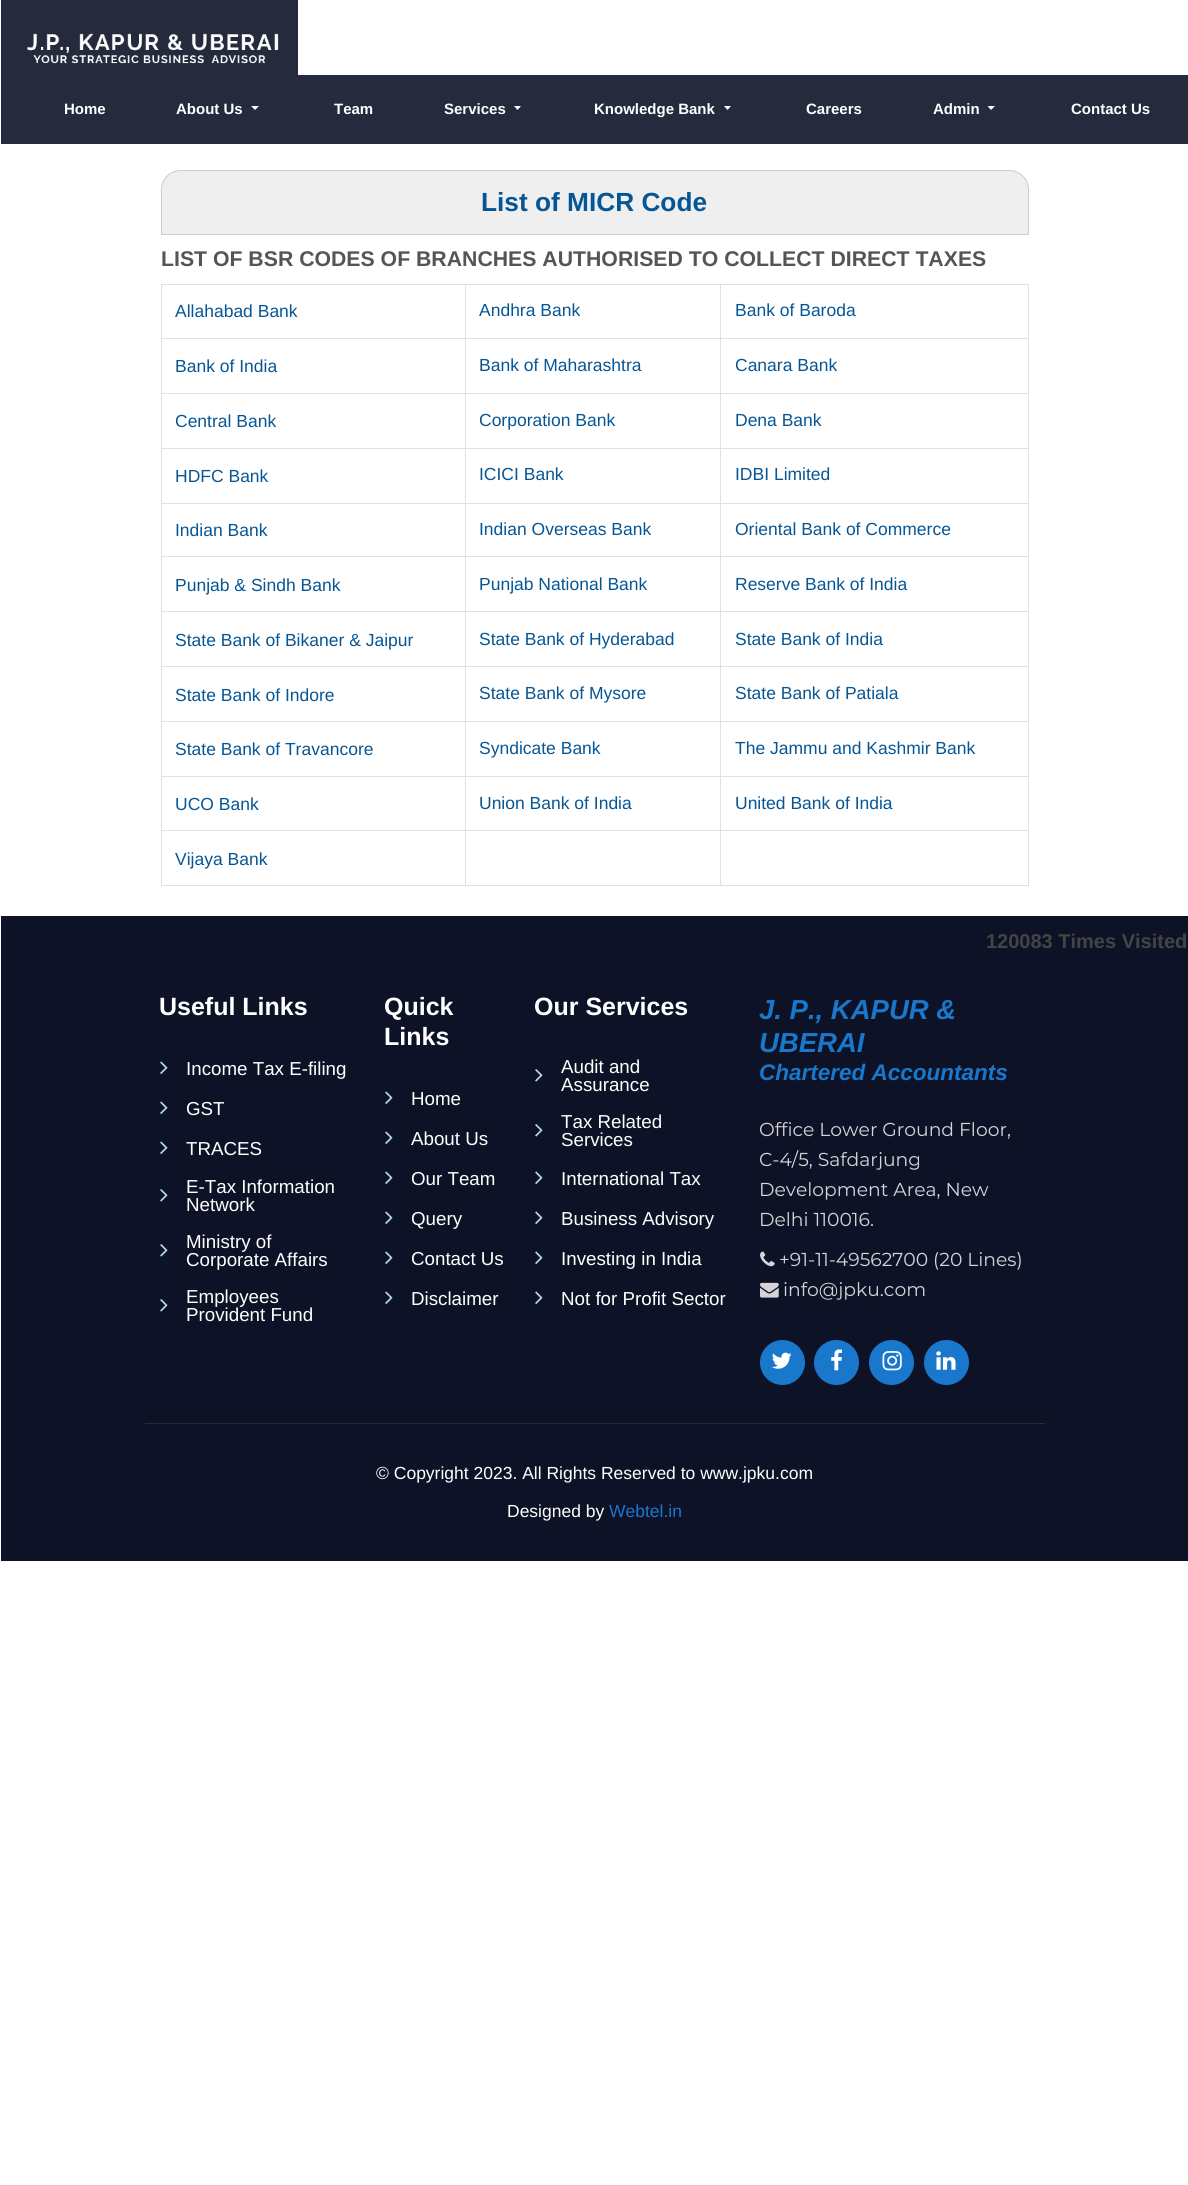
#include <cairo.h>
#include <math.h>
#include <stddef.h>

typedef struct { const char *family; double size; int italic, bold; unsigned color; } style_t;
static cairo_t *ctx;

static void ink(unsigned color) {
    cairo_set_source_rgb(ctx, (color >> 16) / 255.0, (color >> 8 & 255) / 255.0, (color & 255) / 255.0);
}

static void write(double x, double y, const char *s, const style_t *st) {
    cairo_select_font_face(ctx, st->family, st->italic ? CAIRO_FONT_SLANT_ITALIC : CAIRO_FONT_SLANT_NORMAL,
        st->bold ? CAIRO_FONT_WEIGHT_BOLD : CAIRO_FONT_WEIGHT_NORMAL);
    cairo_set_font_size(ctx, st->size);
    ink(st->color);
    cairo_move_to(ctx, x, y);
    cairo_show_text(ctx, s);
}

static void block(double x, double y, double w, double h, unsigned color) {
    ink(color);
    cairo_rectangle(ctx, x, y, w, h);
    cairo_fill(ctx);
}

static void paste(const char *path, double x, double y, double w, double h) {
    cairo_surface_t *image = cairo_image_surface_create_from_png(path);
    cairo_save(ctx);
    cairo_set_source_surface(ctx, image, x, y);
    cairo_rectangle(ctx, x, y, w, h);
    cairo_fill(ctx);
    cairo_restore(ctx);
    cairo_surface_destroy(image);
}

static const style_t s1 = {"Liberation Sans", 15, 0, 1, 0xffffff};
static const style_t s2 = {"Liberation Sans", 26.25, 0, 1, 0x065695};
static const style_t s3 = {"Liberation Sans", 21.25, 0, 1, 0x555555};
static const style_t s4 = {"Liberation Sans", 17.5, 0, 0, 0x065695};
static const style_t s5 = {"Liberation Sans", 20, 0, 1, 0x444444};
static const style_t s6 = {"Liberation Sans", 25, 0, 1, 0xffffff};
static const style_t s7 = {"Liberation Sans", 18.75, 0, 0, 0xffffff};
static const style_t s8 = {"Liberation Sans", 27.5, 1, 1, 0x1977cc};
static const style_t s9 = {"Liberation Sans", 22.5, 1, 1, 0x1977cc};
static const style_t s10 = {"Montserrat", 18.75, 0, 0, 0xd5d5d7};
static const style_t s11 = {"Liberation Sans", 17.5, 0, 0, 0xffffff};
static const style_t s12 = {"Liberation Sans", 17.5, 0, 0, 0x1977cc};

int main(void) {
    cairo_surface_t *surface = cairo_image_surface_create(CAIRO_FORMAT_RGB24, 1188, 2185);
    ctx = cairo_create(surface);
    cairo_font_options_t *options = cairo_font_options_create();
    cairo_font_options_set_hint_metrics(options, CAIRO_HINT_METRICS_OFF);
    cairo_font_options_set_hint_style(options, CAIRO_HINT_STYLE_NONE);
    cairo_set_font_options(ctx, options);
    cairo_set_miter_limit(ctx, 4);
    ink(0xffffff);
    cairo_paint(ctx);
    block(1, 0, 297, 75, 0x252a3c);
    paste("pic1.png", 27, 33, 252, 31);
    block(1, 75, 1187, 69, 0x252a3c);
    write(64, 114, "Home", &s1);
    write(176, 114, "About Us", &s1);
    cairo_new_path(ctx);
    cairo_move_to(ctx, 251, 106);
    cairo_line_to(ctx, 259, 106);
    cairo_line_to(ctx, 255, 110);
    cairo_close_path(ctx);
    cairo_fill(ctx);
    write(334, 114, "Team", &s1);
    write(444, 114, "Services", &s1);
    cairo_new_path(ctx);
    cairo_move_to(ctx, 514, 106);
    cairo_line_to(ctx, 521, 106);
    cairo_line_to(ctx, 517.5, 110);
    cairo_close_path(ctx);
    cairo_fill(ctx);
    write(594, 114, "Knowledge Bank", &s1);
    cairo_new_path(ctx);
    cairo_move_to(ctx, 724, 106);
    cairo_line_to(ctx, 731, 106);
    cairo_line_to(ctx, 727.5, 110);
    cairo_close_path(ctx);
    cairo_fill(ctx);
    write(806, 114, "Careers", &s1);
    write(933, 114, "Admin", &s1);
    cairo_new_path(ctx);
    cairo_move_to(ctx, 987.5, 106);
    cairo_line_to(ctx, 995, 106);
    cairo_line_to(ctx, 991, 110);
    cairo_close_path(ctx);
    cairo_fill(ctx);
    write(1071, 114, "Contact Us", &s1);
    ink(0xefefef);
    cairo_new_path(ctx);
    cairo_move_to(ctx, 181, 170.5);
    cairo_line_to(ctx, 1009, 170.5);
    cairo_curve_to(ctx, 1020, 170.5, 1028.5, 179, 1028.5, 190);
    cairo_line_to(ctx, 1028.5, 234.5);
    cairo_line_to(ctx, 161.5, 234.5);
    cairo_line_to(ctx, 161.5, 190);
    cairo_curve_to(ctx, 161.5, 179, 170, 170.5, 181, 170.5);
    cairo_close_path(ctx);
    cairo_fill_preserve(ctx);
    ink(0xcccccc);
    cairo_set_line_width(ctx, 1);
    cairo_stroke(ctx);
    write(481, 211, "List of MICR Code", &s2);
    write(161, 266, "LIST OF BSR CODES OF BRANCHES AUTHORISED TO COLLECT DIRECT TAXES", &s3);
    block(161, 284, 868, 1, 0xdee2e6);
    block(1028, 284, 1, 602, 0xdee2e6);
    block(161, 885, 868, 1, 0xdee2e6);
    block(161, 284, 1, 602, 0xdee2e6);
    write(175, 317, "Allahabad Bank", &s4);
    write(479, 316, "Andhra Bank", &s4);
    write(735, 316, "Bank of Baroda", &s4);
    block(161, 338, 868, 1, 0xdee2e6);
    write(175, 372, "Bank of India", &s4);
    write(479, 371, "Bank of Maharashtra", &s4);
    write(735, 371, "Canara Bank", &s4);
    block(161, 393, 868, 1, 0xdee2e6);
    write(175, 427, "Central Bank", &s4);
    write(479, 426, "Corporation Bank", &s4);
    write(735, 426, "Dena Bank", &s4);
    block(161, 448, 868, 1, 0xdee2e6);
    write(175, 482, "HDFC Bank", &s4);
    write(479, 480, "ICICI Bank", &s4);
    write(735, 480, "IDBI Limited", &s4);
    block(161, 503, 868, 1, 0xdee2e6);
    write(175, 536, "Indian Bank", &s4);
    write(479, 535, "Indian Overseas Bank", &s4);
    write(735, 535, "Oriental Bank of Commerce", &s4);
    block(161, 556, 868, 1, 0xdee2e6);
    write(175, 591, "Punjab & Sindh Bank", &s4);
    write(479, 590, "Punjab National Bank", &s4);
    write(735, 590, "Reserve Bank of India", &s4);
    block(161, 611, 868, 1, 0xdee2e6);
    write(175, 646, "State Bank of Bikaner & Jaipur", &s4);
    write(479, 645, "State Bank of Hyderabad", &s4);
    write(735, 645, "State Bank of India", &s4);
    block(161, 666, 868, 1, 0xdee2e6);
    write(175, 701, "State Bank of Indore", &s4);
    write(479, 699, "State Bank of Mysore", &s4);
    write(735, 699, "State Bank of Patiala", &s4);
    block(161, 721, 868, 1, 0xdee2e6);
    write(175, 755, "State Bank of Travancore", &s4);
    write(479, 754, "Syndicate Bank", &s4);
    write(735, 754, "The Jammu and Kashmir Bank", &s4);
    block(161, 776, 868, 1, 0xdee2e6);
    write(175, 810, "UCO Bank", &s4);
    write(479, 809, "Union Bank of India", &s4);
    write(735, 809, "United Bank of India", &s4);
    block(161, 830, 868, 1, 0xdee2e6);
    write(175, 865, "Vijaya Bank", &s4);
    block(465, 284, 1, 602, 0xdee2e6);
    block(720, 284, 1, 602, 0xdee2e6);
    block(1, 916, 1187, 645, 0x0d1226);
    write(986, 948, "120083 Times Visited", &s5);
    write(159, 1015, "Useful Links", &s6);
    paste("pic2.png", 160, 1061, 8, 13);
    write(186, 1075, "Income Tax E-filing", &s7);
    paste("pic2.png", 160, 1101, 8, 13);
    write(186, 1115, "GST", &s7);
    paste("pic2.png", 160, 1141, 8, 13);
    write(186, 1155, "TRACES", &s7);
    paste("pic3.png", 160, 1189, 8, 13);
    write(186, 1193, "E-Tax Information", &s7);
    write(186, 1211, "Network", &s7);
    paste("pic3.png", 160, 1244, 8, 13);
    write(186, 1248, "Ministry of", &s7);
    write(186, 1266, "Corporate Affairs", &s7);
    paste("pic3.png", 160, 1299, 8, 13);
    write(186, 1303, "Employees", &s7);
    write(186, 1321, "Provident Fund", &s7);
    write(384, 1015, "Quick", &s6);
    write(384, 1045, "Links", &s6);
    paste("pic2.png", 385, 1091, 8, 13);
    write(411, 1105, "Home", &s7);
    paste("pic2.png", 385, 1131, 8, 13);
    write(411, 1145, "About Us", &s7);
    paste("pic2.png", 385, 1171, 8, 13);
    write(411, 1185, "Our Team", &s7);
    paste("pic2.png", 385, 1211, 8, 13);
    write(411, 1225, "Query", &s7);
    paste("pic2.png", 385, 1251, 8, 13);
    write(411, 1265, "Contact Us", &s7);
    paste("pic2.png", 385, 1291, 8, 13);
    write(411, 1305, "Disclaimer", &s7);
    write(534, 1015, "Our Services", &s6);
    paste("pic3.png", 535, 1069, 8, 13);
    write(561, 1073, "Audit and", &s7);
    write(561, 1091, "Assurance", &s7);
    paste("pic3.png", 535, 1124, 8, 13);
    write(561, 1128, "Tax Related", &s7);
    write(561, 1146, "Services", &s7);
    paste("pic2.png", 535, 1171, 8, 13);
    write(561, 1185, "International Tax", &s7);
    paste("pic2.png", 535, 1211, 8, 13);
    write(561, 1225, "Business Advisory", &s7);
    paste("pic2.png", 535, 1251, 8, 13);
    write(561, 1265, "Investing in India", &s7);
    paste("pic2.png", 535, 1291, 8, 13);
    write(561, 1305, "Not for Profit Sector", &s7);
    write(759, 1019, "J. P., KAPUR &", &s8);
    write(759, 1052, "UBERAI", &s8);
    write(759, 1080, "Chartered Accountants", &s9);
    write(759, 1136, "Office Lower Ground Floor,", &s10);
    write(759, 1166, "C-4/5, Safdarjung", &s10);
    write(759, 1196, "Development Area, New", &s10);
    write(759, 1226, "Delhi 110016.", &s10);
    paste("pic4.png", 760, 1251, 15, 16);
    write(779, 1266, "+91-11-49562700 (20 Lines)", &s10);
    paste("pic5.png", 760, 1282, 19, 16);
    write(783, 1296, "info@jpku.com", &s10);
    ink(0x1977cc);
    cairo_new_path(ctx);
    cairo_arc(ctx, 782.5, 1362.5, 22.5, 0, 2 * M_PI);
    cairo_fill(ctx);
    paste("pic6.png", 772, 1352, 20, 17);
    cairo_arc(ctx, 836.5, 1362.5, 22.5, 0, 2 * M_PI);
    cairo_fill(ctx);
    paste("pic7.png", 831, 1349, 12, 22);
    cairo_arc(ctx, 891.5, 1362.5, 22.5, 0, 2 * M_PI);
    cairo_fill(ctx);
    paste("pic8.png", 882, 1351, 20, 20);
    cairo_arc(ctx, 946.5, 1362.5, 22.5, 0, 2 * M_PI);
    cairo_fill(ctx);
    paste("pic9.png", 936, 1351, 20, 19);
    block(145, 1423, 900, 1, 0x252a3c);
    write(376, 1479, "© Copyright 2023. All Rights Reserved to www.jpku.com", &s11);
    write(507, 1517, "Designed by", &s11);
    write(609, 1517, "Webtel.in", &s12);
    cairo_surface_write_to_png(surface, "screenshot.png");
    cairo_font_options_destroy(options);
    cairo_destroy(ctx);
    cairo_surface_destroy(surface);
    return 0;
}
